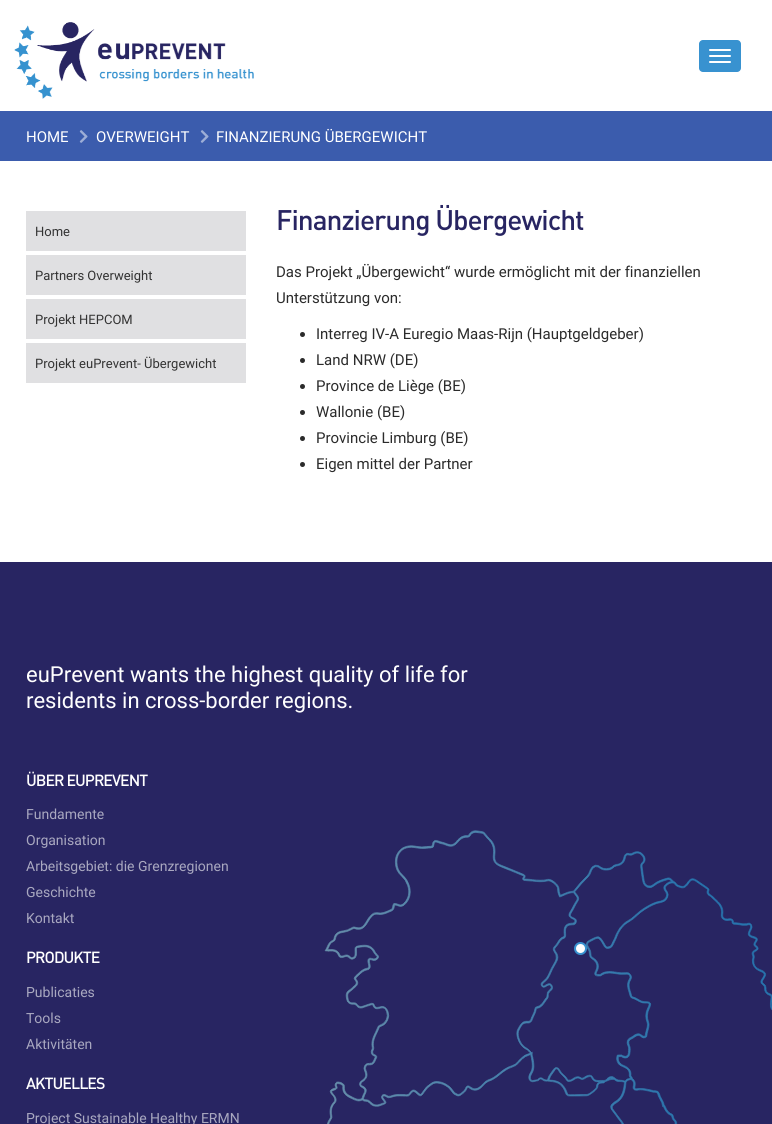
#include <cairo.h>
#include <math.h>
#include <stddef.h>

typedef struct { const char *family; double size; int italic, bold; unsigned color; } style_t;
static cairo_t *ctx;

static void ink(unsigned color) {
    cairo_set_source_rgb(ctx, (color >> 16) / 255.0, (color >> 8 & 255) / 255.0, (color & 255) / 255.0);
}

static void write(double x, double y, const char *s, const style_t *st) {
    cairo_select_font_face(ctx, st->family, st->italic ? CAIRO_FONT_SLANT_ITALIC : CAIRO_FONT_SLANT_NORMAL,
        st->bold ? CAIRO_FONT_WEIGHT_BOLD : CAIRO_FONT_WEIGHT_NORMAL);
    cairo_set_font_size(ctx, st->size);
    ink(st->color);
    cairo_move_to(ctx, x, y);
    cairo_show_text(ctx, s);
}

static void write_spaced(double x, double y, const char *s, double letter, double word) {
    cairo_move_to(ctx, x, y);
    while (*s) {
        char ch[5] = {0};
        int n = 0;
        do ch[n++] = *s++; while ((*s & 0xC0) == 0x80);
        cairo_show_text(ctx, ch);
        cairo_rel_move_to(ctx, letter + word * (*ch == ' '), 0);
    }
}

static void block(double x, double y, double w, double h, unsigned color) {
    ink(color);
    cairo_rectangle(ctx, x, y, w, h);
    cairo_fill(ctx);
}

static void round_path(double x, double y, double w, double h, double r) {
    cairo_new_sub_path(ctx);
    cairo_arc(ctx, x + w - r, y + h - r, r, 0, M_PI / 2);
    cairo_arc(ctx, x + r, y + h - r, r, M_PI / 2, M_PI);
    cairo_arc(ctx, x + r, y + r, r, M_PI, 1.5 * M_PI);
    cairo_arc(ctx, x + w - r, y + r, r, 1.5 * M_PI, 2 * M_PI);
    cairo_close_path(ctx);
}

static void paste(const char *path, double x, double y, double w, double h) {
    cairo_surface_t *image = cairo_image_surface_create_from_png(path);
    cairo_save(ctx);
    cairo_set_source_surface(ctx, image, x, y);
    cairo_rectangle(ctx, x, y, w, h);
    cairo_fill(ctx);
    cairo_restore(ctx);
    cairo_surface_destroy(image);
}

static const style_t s1 = {"Roboto", 15, 0, 0, 0xffffff};
static const style_t s2 = {"Roboto", 13, 0, 0, 0x333333};
static const style_t s3 = {"Roboto", 15, 0, 0, 0x2b2b2b};
static const style_t s4 = {"Roboto", 22, 0, 0, 0xffffff};
static const style_t s5 = {"Roboto", 14, 0, 0, 0xa9a8c0};

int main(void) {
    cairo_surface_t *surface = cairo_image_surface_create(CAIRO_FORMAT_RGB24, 772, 1124);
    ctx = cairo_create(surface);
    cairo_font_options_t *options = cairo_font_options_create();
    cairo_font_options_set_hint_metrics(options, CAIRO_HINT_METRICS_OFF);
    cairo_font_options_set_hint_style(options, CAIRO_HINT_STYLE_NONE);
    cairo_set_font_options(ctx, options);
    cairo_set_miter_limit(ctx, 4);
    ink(0xffffff);
    cairo_paint(ctx);
    paste("pic1.png", 14, 22, 240, 77);
    ink(0x3892d0);
    round_path(699, 40, 42, 32, 4);
    cairo_fill(ctx);
    ink(0xffffff);
    round_path(709, 49, 22, 2, 1);
    cairo_fill(ctx);
    round_path(709, 55, 22, 2, 1);
    cairo_fill(ctx);
    round_path(709, 61, 22, 2, 1);
    cairo_fill(ctx);
    block(0, 111, 772, 50, 0x3b5cad);
    write(26, 142, "HOME", &s1);
    paste("pic2.png", 79, 130, 9, 13);
    write(96, 142, "OVERWEIGHT", &s1);
    paste("pic2.png", 200, 130, 9, 13);
    write(216, 142, "FINANZIERUNG ÜBERGEWICHT", &s1);
    block(26, 211, 220, 40, 0xe0e0e2);
    write(35, 236, "Home", &s2);
    block(26, 255, 220, 40, 0xe0e0e2);
    write(35, 280, "Partners Overweight", &s2);
    block(26, 299, 220, 40, 0xe0e0e2);
    write(35, 324, "Projekt HEPCOM", &s2);
    block(26, 343, 220, 40, 0xe0e0e2);
    write(35, 368, "Projekt euPrevent- Übergewicht", &s2);
    cairo_select_font_face(ctx, "DIN Medium", CAIRO_FONT_SLANT_NORMAL, CAIRO_FONT_WEIGHT_NORMAL);
    cairo_set_font_size(ctx, 28);
    ink(0x282562);
    write_spaced(276, 230, "Finanzierung Übergewicht", -1, 0);
    write(276, 277, "Das Projekt „Übergewicht“ wurde ermöglicht mit der finanziellen", &s3);
    write(276, 303, "Unterstützung von:", &s3);
    cairo_new_path(ctx);
    cairo_arc(ctx, 302.5, 334.5, 2.5, 0, 2 * M_PI);
    cairo_fill(ctx);
    write(316, 339, "Interreg IV-A Euregio Maas-Rijn (Hauptgeldgeber)", &s3);
    cairo_new_path(ctx);
    cairo_arc(ctx, 302.5, 360.5, 2.5, 0, 2 * M_PI);
    cairo_fill(ctx);
    write(316, 365, "Land NRW (DE)", &s3);
    cairo_new_path(ctx);
    cairo_arc(ctx, 302.5, 386.5, 2.5, 0, 2 * M_PI);
    cairo_fill(ctx);
    write(316, 391, "Province de Liège (BE)", &s3);
    cairo_new_path(ctx);
    cairo_arc(ctx, 302.5, 412.5, 2.5, 0, 2 * M_PI);
    cairo_fill(ctx);
    write(316, 417, "Wallonie (BE)", &s3);
    cairo_new_path(ctx);
    cairo_arc(ctx, 302.5, 438.5, 2.5, 0, 2 * M_PI);
    cairo_fill(ctx);
    write(316, 443, "Provincie Limburg (BE)", &s3);
    cairo_new_path(ctx);
    cairo_arc(ctx, 302.5, 464.5, 2.5, 0, 2 * M_PI);
    cairo_fill(ctx);
    write(316, 469, "Eigen mittel der Partner", &s3);
    block(0, 562, 772, 562, 0x282562);
    write(26, 682, "euPrevent wants the highest quality of life for", &s4);
    write(26, 708, "residents in cross-border regions.", &s4);
    cairo_select_font_face(ctx, "DIN Medium", CAIRO_FONT_SLANT_NORMAL, CAIRO_FONT_WEIGHT_NORMAL);
    cairo_set_font_size(ctx, 16);
    write_spaced(26, 786, "ÜBER EUPREVENT", -1, 0);
    write(26, 819, "Fundamente", &s5);
    write(26, 845, "Organisation", &s5);
    write(26, 871, "Arbeitsgebiet: die Grenzregionen", &s5);
    write(26, 897, "Geschichte", &s5);
    write(26, 923, "Kontakt", &s5);
    cairo_select_font_face(ctx, "DIN Medium", CAIRO_FONT_SLANT_NORMAL, CAIRO_FONT_WEIGHT_NORMAL);
    cairo_set_font_size(ctx, 16);
    ink(0xffffff);
    write_spaced(26, 963, "PRODUKTE", -1, 0);
    write(26, 997, "Publicaties", &s5);
    write(26, 1023, "Tools", &s5);
    write(26, 1049, "Aktivitäten", &s5);
    cairo_select_font_face(ctx, "DIN Medium", CAIRO_FONT_SLANT_NORMAL, CAIRO_FONT_WEIGHT_NORMAL);
    cairo_set_font_size(ctx, 16);
    ink(0xffffff);
    write_spaced(26, 1089, "AKTUELLES", -1, 0);
    write(26, 1123, "Project Sustainable Healthy ERMN", &s5);
    paste("pic3.png", 324, 830, 448, 294);
    ink(0xffffff);
    cairo_arc(ctx, 580.5, 948.5, 5.5, 0, 2 * M_PI);
    cairo_fill_preserve(ctx);
    ink(0x3892d0);
    cairo_stroke(ctx);
    cairo_surface_write_to_png(surface, "screenshot.png");
    cairo_font_options_destroy(options);
    cairo_destroy(ctx);
    cairo_surface_destroy(surface);
    return 0;
}
